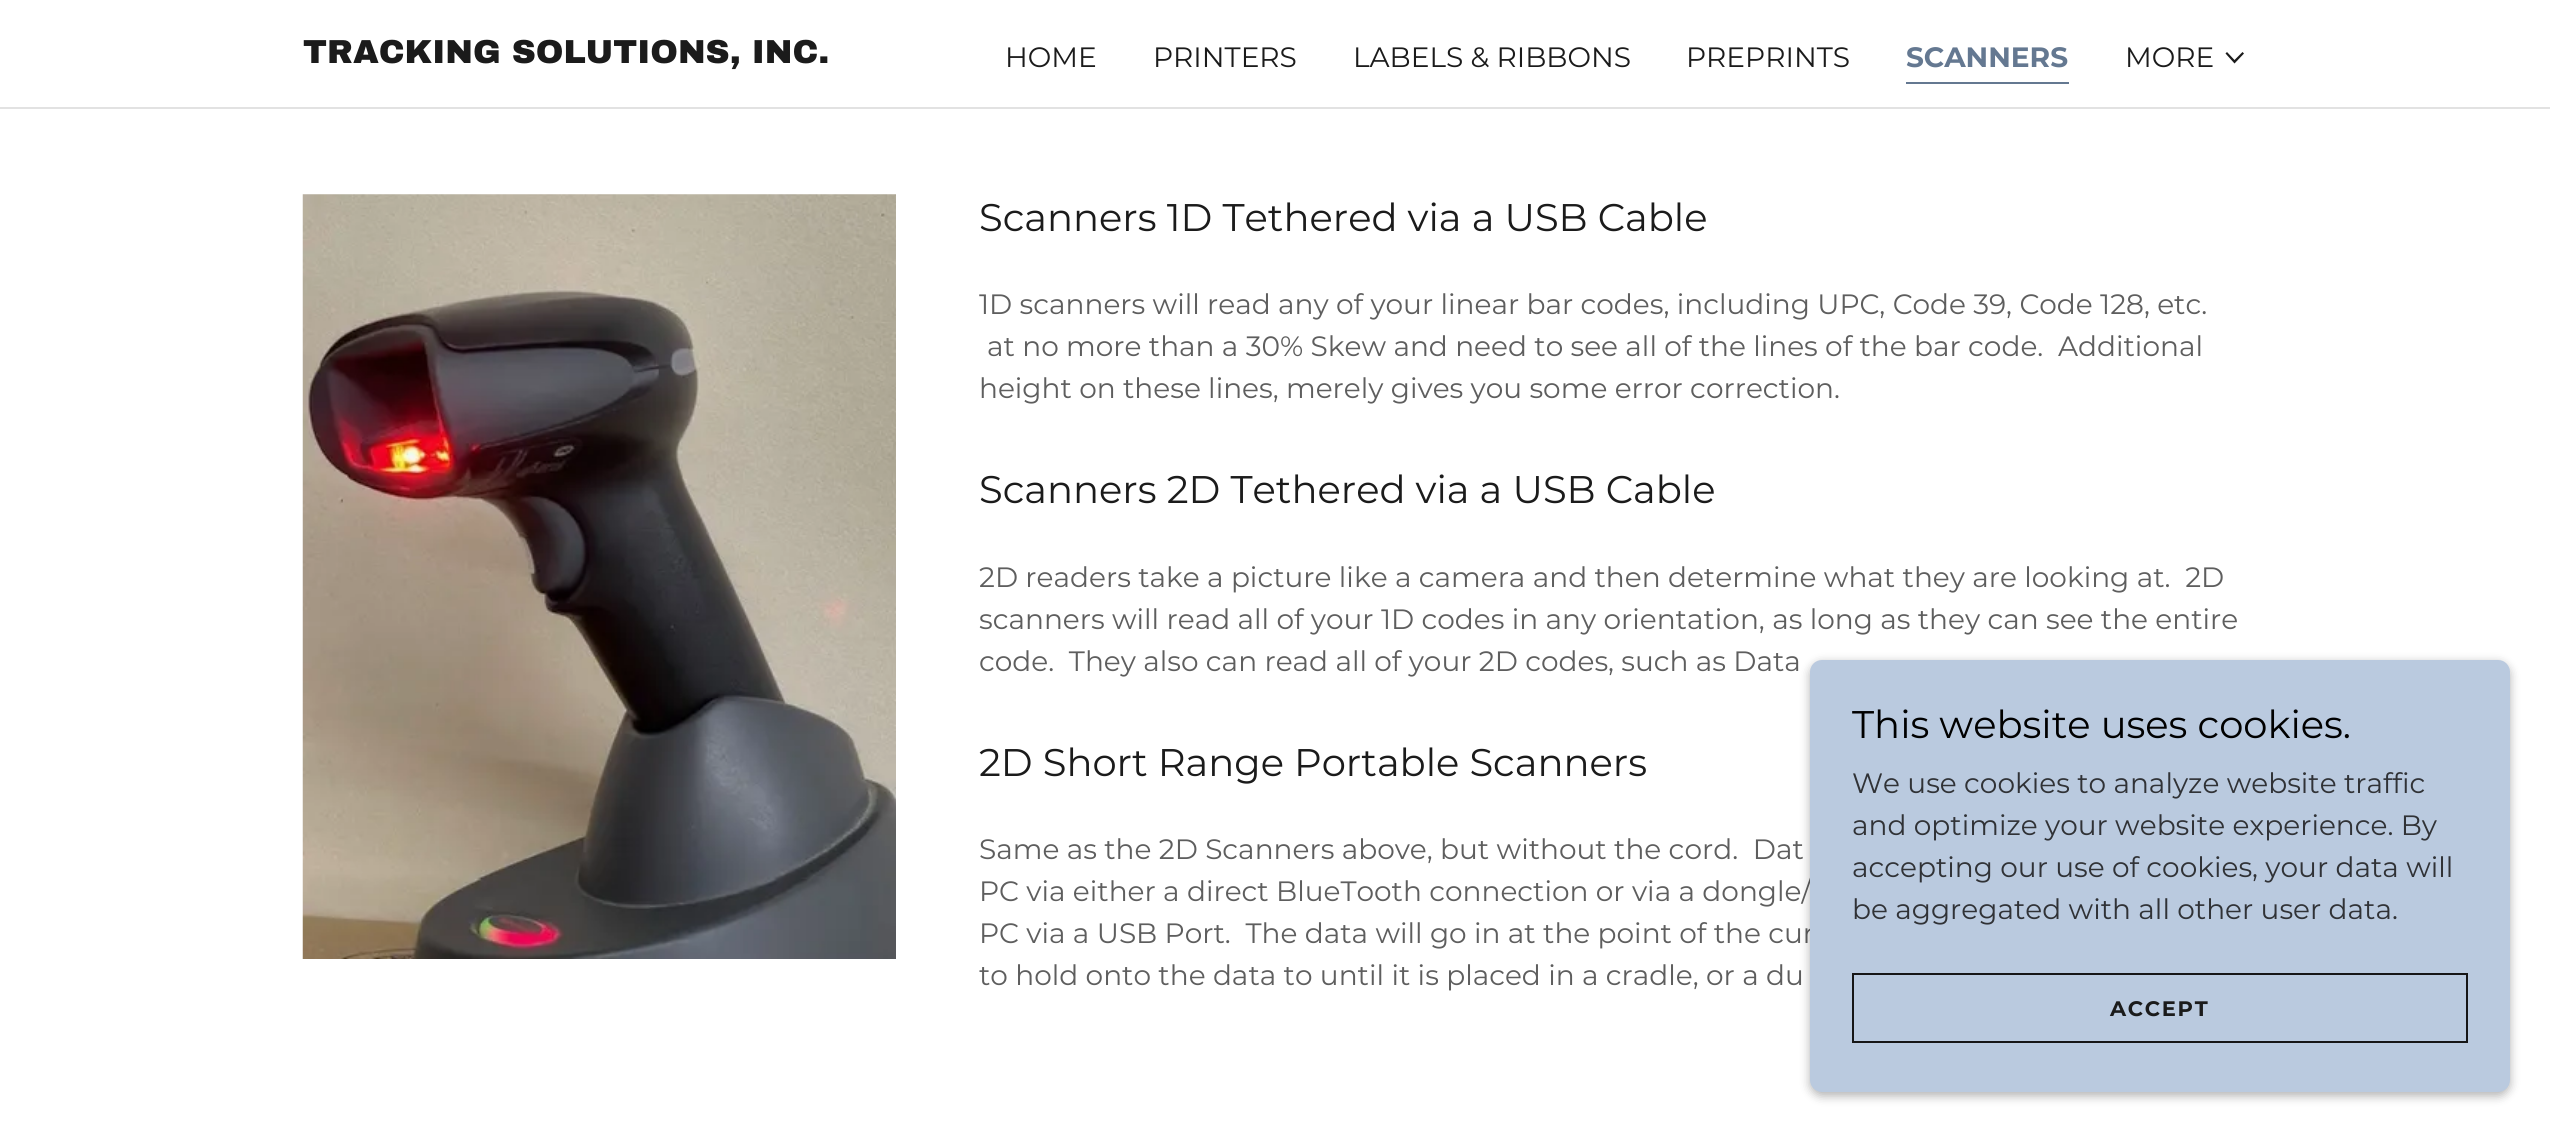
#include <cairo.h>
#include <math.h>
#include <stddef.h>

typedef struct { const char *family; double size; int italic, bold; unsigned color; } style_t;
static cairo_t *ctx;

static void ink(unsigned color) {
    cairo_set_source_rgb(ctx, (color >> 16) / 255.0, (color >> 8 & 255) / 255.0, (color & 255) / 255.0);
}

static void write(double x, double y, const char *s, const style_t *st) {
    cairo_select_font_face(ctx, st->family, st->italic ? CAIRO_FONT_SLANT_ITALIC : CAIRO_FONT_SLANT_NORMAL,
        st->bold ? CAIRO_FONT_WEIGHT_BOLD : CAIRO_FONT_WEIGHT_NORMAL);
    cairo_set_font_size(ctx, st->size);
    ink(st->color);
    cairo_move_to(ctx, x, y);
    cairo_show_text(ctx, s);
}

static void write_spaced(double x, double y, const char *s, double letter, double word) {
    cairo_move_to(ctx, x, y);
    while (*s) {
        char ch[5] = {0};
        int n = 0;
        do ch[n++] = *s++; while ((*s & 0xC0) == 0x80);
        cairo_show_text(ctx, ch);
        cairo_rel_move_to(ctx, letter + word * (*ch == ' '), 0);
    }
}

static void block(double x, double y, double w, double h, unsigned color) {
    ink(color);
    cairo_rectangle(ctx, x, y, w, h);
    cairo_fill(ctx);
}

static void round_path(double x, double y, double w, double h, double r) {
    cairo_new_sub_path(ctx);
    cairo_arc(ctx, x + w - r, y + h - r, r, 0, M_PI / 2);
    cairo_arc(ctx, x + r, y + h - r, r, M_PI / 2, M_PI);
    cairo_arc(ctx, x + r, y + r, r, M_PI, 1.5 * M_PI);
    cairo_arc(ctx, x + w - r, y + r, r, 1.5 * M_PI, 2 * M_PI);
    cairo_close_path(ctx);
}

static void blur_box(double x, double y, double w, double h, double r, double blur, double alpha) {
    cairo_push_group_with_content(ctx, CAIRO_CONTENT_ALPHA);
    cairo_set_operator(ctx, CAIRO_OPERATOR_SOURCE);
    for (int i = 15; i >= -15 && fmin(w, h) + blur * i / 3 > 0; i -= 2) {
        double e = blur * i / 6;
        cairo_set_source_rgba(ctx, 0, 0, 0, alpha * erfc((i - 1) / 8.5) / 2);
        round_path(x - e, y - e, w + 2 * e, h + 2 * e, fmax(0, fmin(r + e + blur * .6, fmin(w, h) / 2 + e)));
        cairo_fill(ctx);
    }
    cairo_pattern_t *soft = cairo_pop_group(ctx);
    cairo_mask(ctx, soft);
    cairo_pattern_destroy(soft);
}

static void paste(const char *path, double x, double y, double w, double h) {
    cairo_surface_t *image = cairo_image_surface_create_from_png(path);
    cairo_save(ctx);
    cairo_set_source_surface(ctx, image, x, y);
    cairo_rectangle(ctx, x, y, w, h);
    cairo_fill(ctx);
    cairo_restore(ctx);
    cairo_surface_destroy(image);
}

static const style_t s1 = {"Archivo Black Black", 33.25, 0, 0, 0x1b1b1b};
static const style_t s2 = {"Montserrat", 28, 0, 0, 0x1b1b1b};
static const style_t s3 = {"Montserrat", 28, 0, 1, 0x647891};
static const style_t s4 = {"Montserrat", 38.5, 0, 0, 0x1b1b1b};
static const style_t s5 = {"Montserrat", 28, 0, 0, 0x5e5e5e};
static const style_t s6 = {"Montserrat", 38.5, 0, 0, 0x000000};
static const style_t s7 = {"Montserrat", 28, 0, 0, 0x303236};

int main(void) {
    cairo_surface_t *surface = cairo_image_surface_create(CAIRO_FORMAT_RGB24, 2550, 1134);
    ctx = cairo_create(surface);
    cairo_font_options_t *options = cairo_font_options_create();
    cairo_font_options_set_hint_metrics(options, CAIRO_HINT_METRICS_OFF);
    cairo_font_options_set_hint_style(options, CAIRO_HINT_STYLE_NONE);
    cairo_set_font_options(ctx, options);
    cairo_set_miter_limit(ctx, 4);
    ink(0xffffff);
    cairo_paint(ctx);
    write(303, 63, "TRACKING SOLUTIONS, INC.", &s1);
    write(1005, 67, "HOME", &s2);
    write(1153, 67, "PRINTERS", &s2);
    write(1353, 67, "LABELS & RIBBONS", &s2);
    write(1686, 67, "PREPRINTS", &s2);
    block(1906, 82, 163, 2, 0x647891);
    write(1906, 67, "SCANNERS", &s3);
    write(2125, 67, "MORE", &s2);
    cairo_set_fill_rule(ctx, CAIRO_FILL_RULE_EVEN_ODD);
    cairo_new_path(ctx);
    cairo_move_to(ctx, 2242.5, 52);
    cairo_line_to(ctx, 2234.5, 60);
    cairo_line_to(ctx, 2227, 52);
    cairo_line_to(ctx, 2225.5, 53.5);
    cairo_line_to(ctx, 2234.5, 63.5);
    cairo_line_to(ctx, 2244, 53.5);
    cairo_close_path(ctx);
    cairo_fill(ctx);
    block(0, 107, 2550, 2, 0xe2e2e2);
    paste("pic1.png", 302, 194, 594, 765);
    write(979, 231, "Scanners 1D Tethered via a USB Cable", &s4);
    write(979, 314, "1D scanners will read any of your linear bar codes, including UPC, Code 39, Code 128, etc.", &s5);
    write(987, 356, "at no more than a 30% Skew and need to see all of the lines of the bar code.  Additional", &s5);
    write(979, 398, "height on these lines, merely gives you some error correction.", &s5);
    write(979, 503, "Scanners 2D Tethered via a USB Cable", &s4);
    write(979, 587, "2D readers take a picture like a camera and then determine what they are looking at.  2D", &s5);
    write(979, 629, "scanners will read all of your 1D codes in any orientation, as long as they can see the entire", &s5);
    write(979, 671, "code.  They also can read all of your 2D codes, such as Data", &s5);
    write(979, 776, "2D Short Range Portable Scanners", &s4);
    write(979, 859, "Same as the 2D Scanners above, but without the cord.  Dat", &s5);
    write(979, 901, "PC via either a direct BlueTooth connection or via a dongle/", &s5);
    write(979, 943, "PC via a USB Port.  The data will go in at the point of the cur", &s5);
    write(979, 985, "to hold onto the data to until it is placed in a cradle, or a du", &s5);
    ink(0x000000);
    blur_box(1810, 663, 700, 433, 12, 5, 0.3);
    ink(0xbacadf);
    round_path(1810, 660, 700, 432, 12);
    cairo_fill(ctx);
    write(1852, 738, "This website uses cookies.", &s6);
    write(1852, 793, "We use cookies to analyze website traffic", &s7);
    write(1852, 835, "and optimize your website experience. By", &s7);
    write(1852, 877, "accepting our use of cookies, your data will", &s7);
    write(1852, 919, "be aggregated with all other user data.", &s7);
    cairo_rectangle(ctx, 1853, 974, 614, 68);
    ink(0x161616);
    cairo_stroke(ctx);
    cairo_select_font_face(ctx, "Montserrat", CAIRO_FONT_SLANT_NORMAL, CAIRO_FONT_WEIGHT_BOLD);
    cairo_set_font_size(ctx, 21);
    ink(0x1b1b1b);
    write_spaced(2110, 1016, "ACCEPT", 1.75, 0);
    cairo_surface_write_to_png(surface, "screenshot.png");
    cairo_font_options_destroy(options);
    cairo_destroy(ctx);
    cairo_surface_destroy(surface);
    return 0;
}
